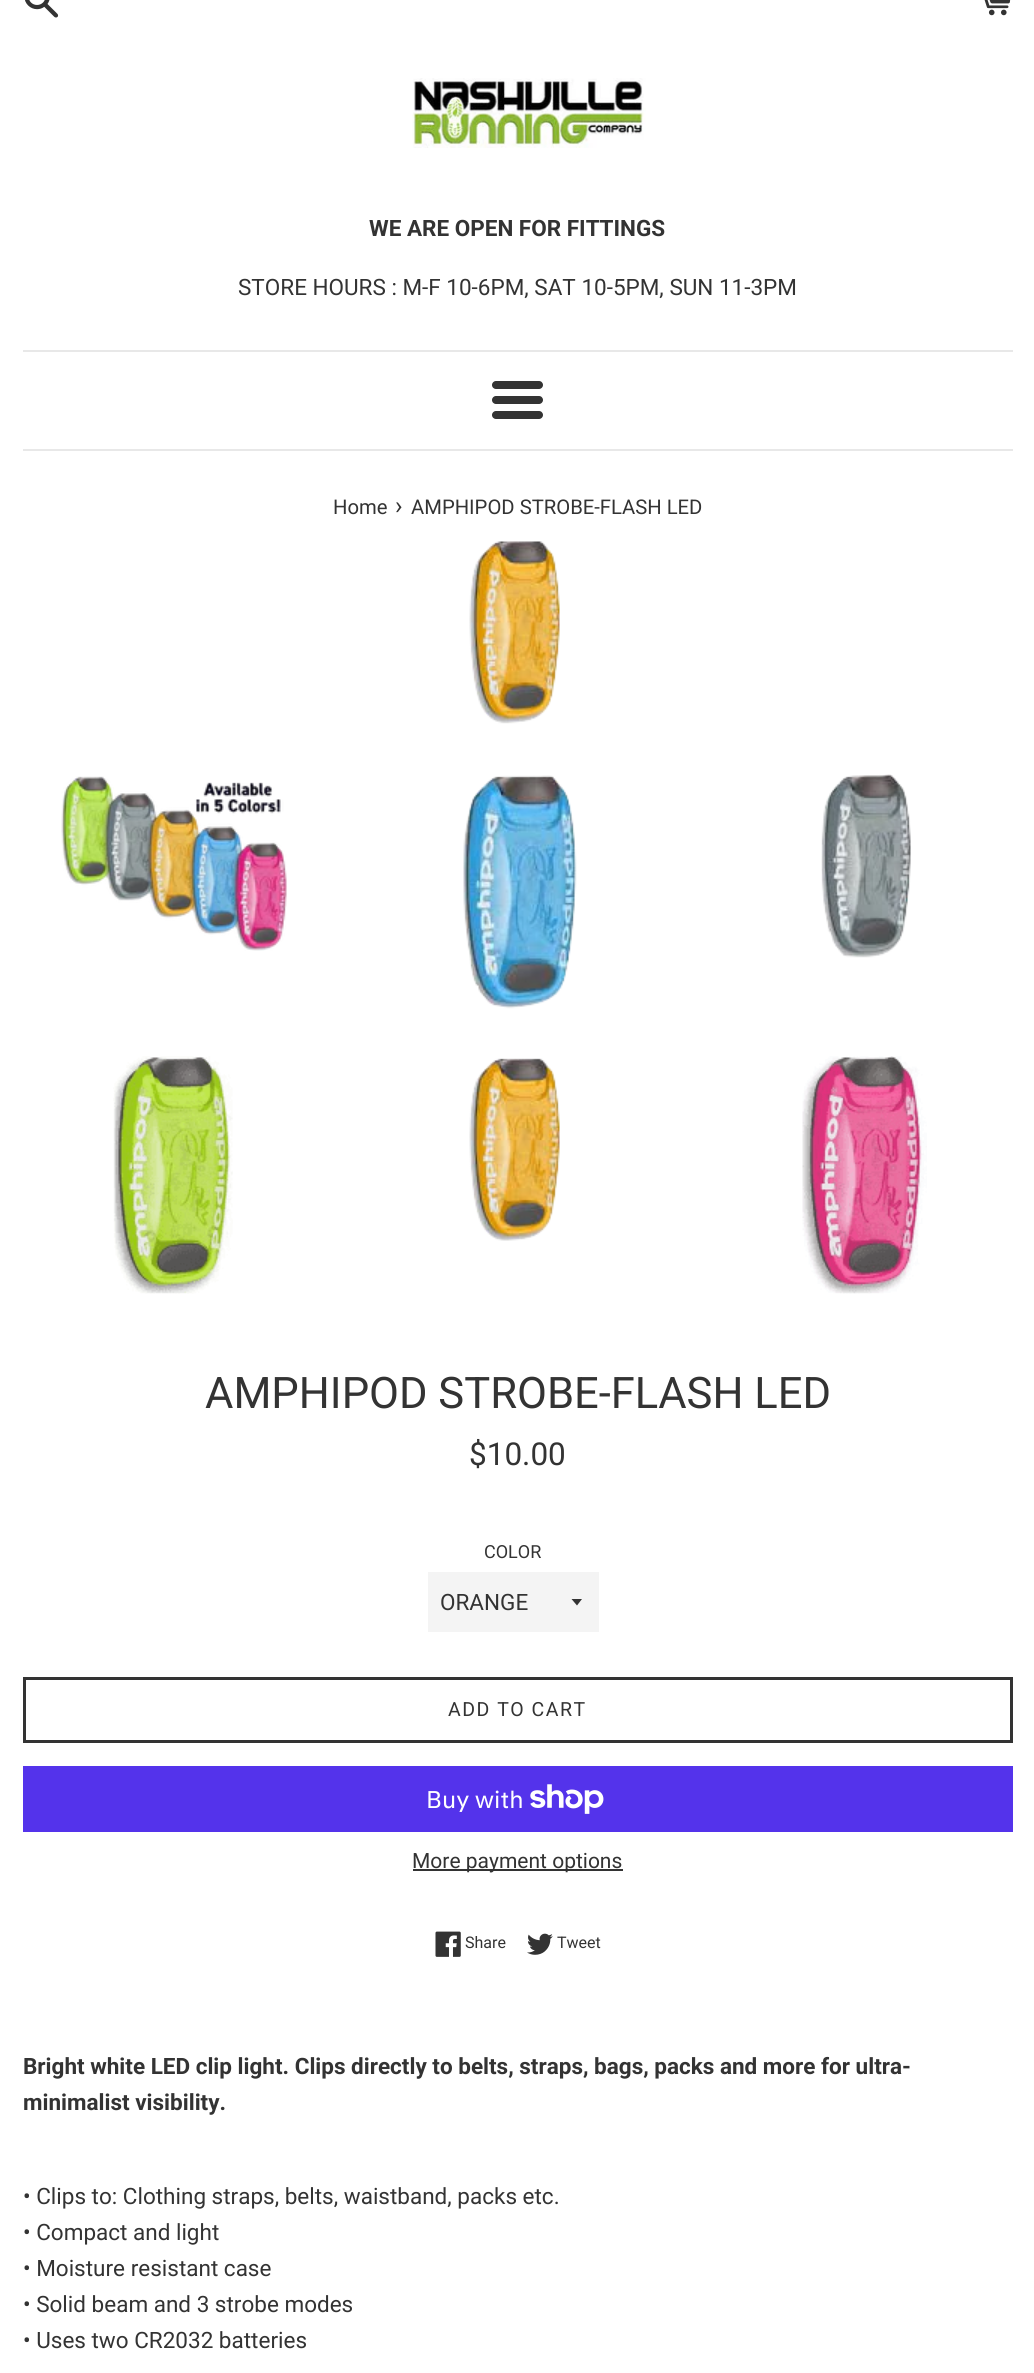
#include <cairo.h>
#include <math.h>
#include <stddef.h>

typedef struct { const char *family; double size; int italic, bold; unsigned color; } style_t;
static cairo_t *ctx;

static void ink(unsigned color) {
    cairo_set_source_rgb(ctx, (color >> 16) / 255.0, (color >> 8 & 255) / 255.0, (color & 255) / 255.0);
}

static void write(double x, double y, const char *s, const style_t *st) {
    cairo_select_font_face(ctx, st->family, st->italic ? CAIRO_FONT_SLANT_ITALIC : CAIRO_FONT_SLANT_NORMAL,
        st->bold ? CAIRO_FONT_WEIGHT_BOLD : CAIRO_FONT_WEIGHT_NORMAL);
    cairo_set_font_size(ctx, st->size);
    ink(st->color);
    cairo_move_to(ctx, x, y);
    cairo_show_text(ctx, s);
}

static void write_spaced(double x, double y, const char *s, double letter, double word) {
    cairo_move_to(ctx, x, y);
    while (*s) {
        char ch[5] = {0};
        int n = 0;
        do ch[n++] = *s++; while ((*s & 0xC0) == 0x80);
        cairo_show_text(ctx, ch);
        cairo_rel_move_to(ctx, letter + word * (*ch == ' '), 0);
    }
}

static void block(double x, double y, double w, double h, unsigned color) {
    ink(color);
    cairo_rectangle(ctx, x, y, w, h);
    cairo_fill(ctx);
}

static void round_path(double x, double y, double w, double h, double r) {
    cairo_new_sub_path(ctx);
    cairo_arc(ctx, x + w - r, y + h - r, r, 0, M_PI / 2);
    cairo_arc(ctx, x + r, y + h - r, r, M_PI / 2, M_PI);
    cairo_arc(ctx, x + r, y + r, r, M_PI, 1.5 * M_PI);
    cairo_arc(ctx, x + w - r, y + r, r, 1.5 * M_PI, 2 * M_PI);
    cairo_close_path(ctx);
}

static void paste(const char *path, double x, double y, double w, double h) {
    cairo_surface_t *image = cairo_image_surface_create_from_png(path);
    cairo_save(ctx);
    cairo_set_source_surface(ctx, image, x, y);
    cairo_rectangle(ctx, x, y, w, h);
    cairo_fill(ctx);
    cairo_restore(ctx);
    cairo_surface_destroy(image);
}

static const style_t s1 = {"Roboto", 22.5, 0, 1, 0x333333};
static const style_t s2 = {"Roboto", 22.5, 0, 0, 0x333333};
static const style_t s3 = {"Roboto", 20.25, 0, 0, 0x333333};
static const style_t s4 = {"Roboto", 25, 0, 0, 0x333333};
static const style_t s5 = {"Roboto", 43.5, 0, 0, 0x333333};
static const style_t s6 = {"Roboto", 31.5, 0, 0, 0x333333};
static const style_t s7 = {"Roboto", 18, 0, 0, 0x333333};
static const style_t s8 = {"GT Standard", 24, 0, 0, 0xffffff};
static const style_t s9 = {"Roboto", 21, 0, 0, 0x333333};
static const style_t s10 = {"Roboto", 16, 0, 0, 0x333333};

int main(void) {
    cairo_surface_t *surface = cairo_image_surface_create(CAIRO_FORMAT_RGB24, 1034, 2373);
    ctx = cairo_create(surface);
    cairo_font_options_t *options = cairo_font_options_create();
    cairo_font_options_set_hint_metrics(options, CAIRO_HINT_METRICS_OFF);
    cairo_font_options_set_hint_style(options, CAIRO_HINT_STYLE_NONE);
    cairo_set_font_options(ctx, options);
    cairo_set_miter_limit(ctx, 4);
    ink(0xffffff);
    cairo_paint(ctx);
    paste("pic1.png", 25, 0, 34, 18);
    paste("pic2.png", 984, 0, 27, 16);
    paste("pic3.png", 412, 78, 234, 70);
    write(369, 236, "WE ARE OPEN FOR FITTINGS", &s1);
    write(238, 295, "STORE HOURS : M-F 10-6PM, SAT 10-5PM, SUN 11-3PM", &s2);
    block(23, 350, 990, 2, 0xe8e8e8);
    ink(0x333333);
    round_path(492, 381, 51, 8, 4);
    cairo_fill(ctx);
    round_path(492, 396, 51, 8, 4);
    cairo_fill(ctx);
    round_path(492, 411, 51, 8, 4);
    cairo_fill(ctx);
    block(23, 449, 990, 2, 0xe8e8e8);
    write(333, 514, "Home", &s3);
    write(395, 514, "›", &s4);
    write(411, 514, "AMPHIPOD STROBE-FLASH LED", &s3);
    paste("pic4.png", 469, 541, 91, 183);
    paste("pic5.png", 61, 776, 226, 175);
    paste("pic6.png", 463, 775, 114, 234);
    paste("pic7.png", 821, 774, 90, 184);
    paste("pic8.png", 113, 1056, 120, 238);
    paste("pic9.png", 469, 1058, 91, 183);
    paste("pic10.png", 802, 1056, 125, 238);
    write(205, 1408, "AMPHIPOD STROBE-FLASH LED", &s5);
    write(469, 1465, "$10.00", &s6);
    write(484, 1558, "COLOR", &s7);
    block(428, 1572, 171, 60, 0xf4f4f4);
    ink(0x333333);
    cairo_new_path(ctx);
    cairo_move_to(ctx, 571.5, 1599);
    cairo_line_to(ctx, 577, 1605.5);
    cairo_line_to(ctx, 582, 1599);
    cairo_close_path(ctx);
    cairo_fill(ctx);
    write(440, 1610, "ORANGE", &s2);
    cairo_rectangle(ctx, 24.5, 1678.5, 987, 63);
    cairo_set_line_width(ctx, 3);
    cairo_stroke(ctx);
    cairo_set_font_size(ctx, 19.5);
    write_spaced(448, 1716, "ADD TO CART", 1.5, 0);
    block(23, 1766, 990, 66, 0x5433eb);
    write(426, 1808, "Buy with", &s8);
    paste("pic11.png", 530, 1784, 74, 30);
    block(413, 1869, 210, 2, 0x333333);
    write(412, 1868, "More payment options", &s9);
    paste("pic12.png", 435, 1931, 26, 26);
    write(465, 1948, "Share", &s10);
    paste("pic13.png", 527, 1933, 26, 22);
    write(557, 1948, "Tweet", &s10);
    write(23, 2074, "Bright white LED clip light. Clips directly to belts, straps, bags, packs and more for ultra-", &s1);
    write(23, 2110, "minimalist visibility.", &s1);
    write(23, 2204, "• Clips to: Clothing straps, belts, waistband, packs etc.", &s2);
    write(23, 2240, "• Compact and light", &s2);
    write(23, 2276, "• Moisture resistant case", &s2);
    write(23, 2312, "• Solid beam and 3 strobe modes", &s2);
    write(23, 2348, "• Uses two CR2032 batteries", &s2);
    cairo_surface_write_to_png(surface, "screenshot.png");
    cairo_font_options_destroy(options);
    cairo_destroy(ctx);
    cairo_surface_destroy(surface);
    return 0;
}
